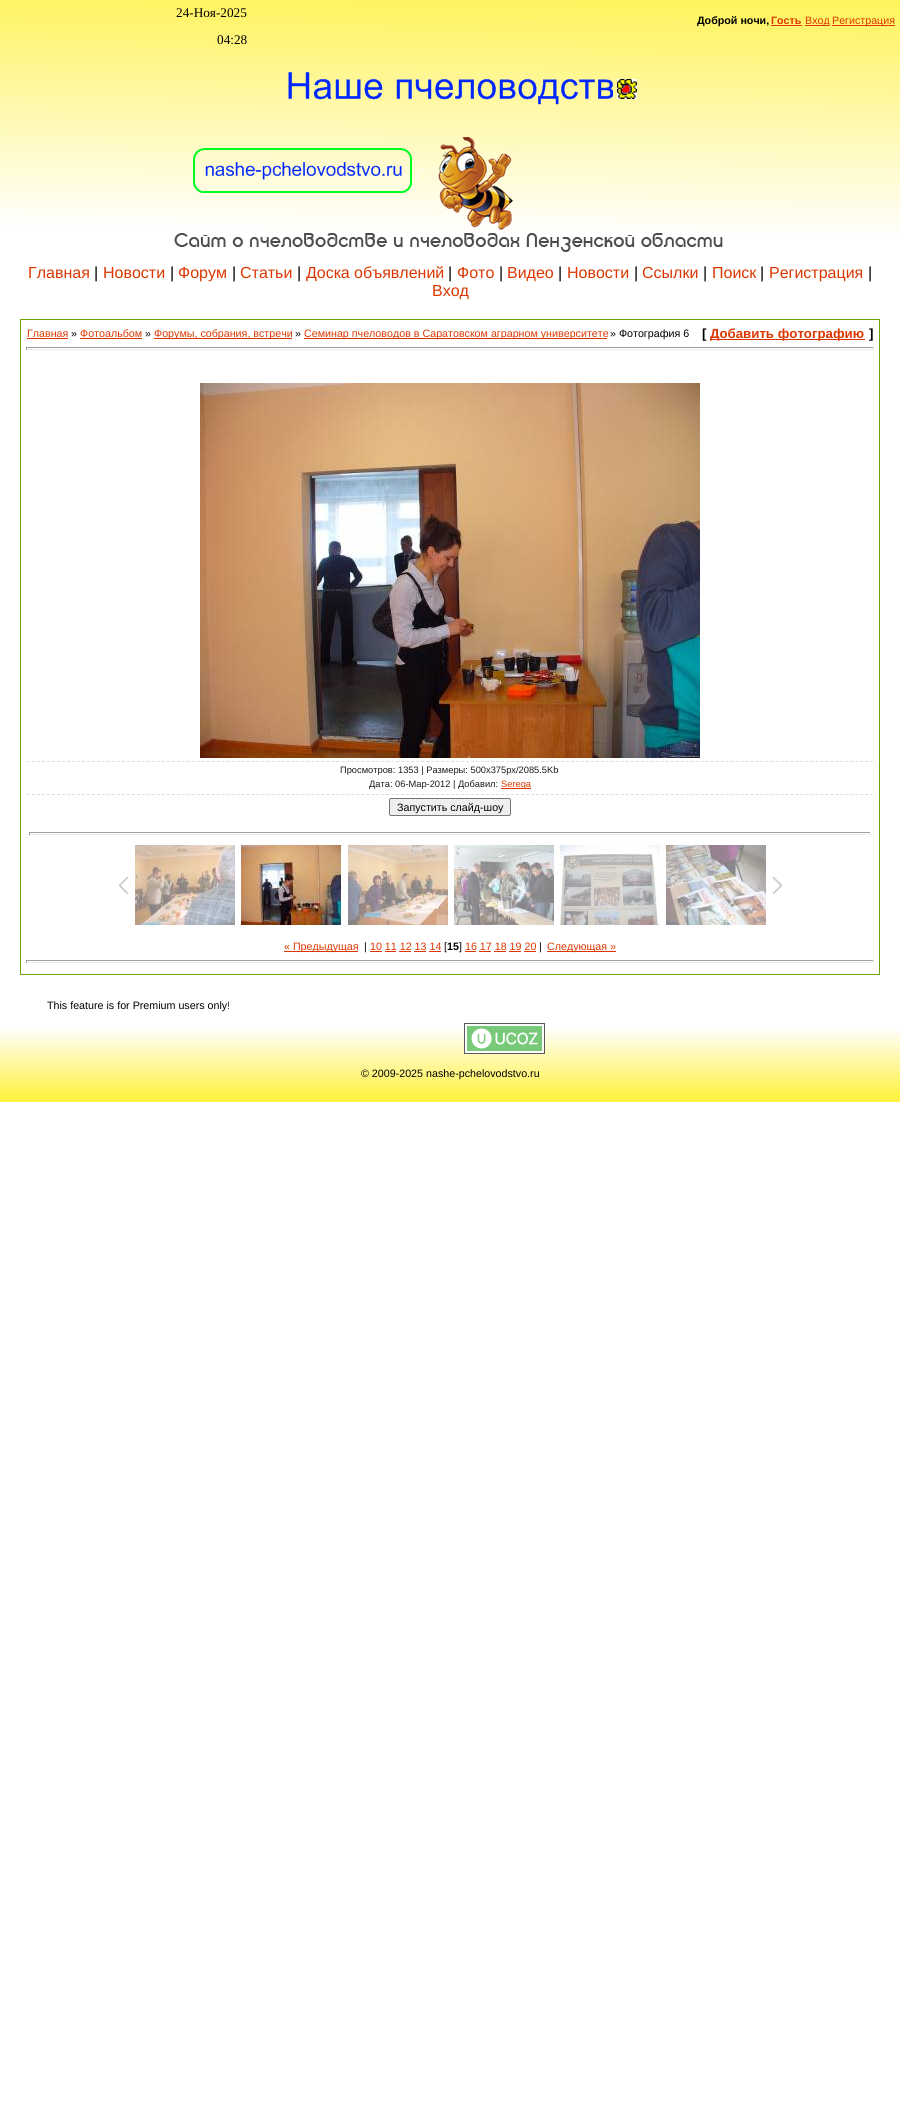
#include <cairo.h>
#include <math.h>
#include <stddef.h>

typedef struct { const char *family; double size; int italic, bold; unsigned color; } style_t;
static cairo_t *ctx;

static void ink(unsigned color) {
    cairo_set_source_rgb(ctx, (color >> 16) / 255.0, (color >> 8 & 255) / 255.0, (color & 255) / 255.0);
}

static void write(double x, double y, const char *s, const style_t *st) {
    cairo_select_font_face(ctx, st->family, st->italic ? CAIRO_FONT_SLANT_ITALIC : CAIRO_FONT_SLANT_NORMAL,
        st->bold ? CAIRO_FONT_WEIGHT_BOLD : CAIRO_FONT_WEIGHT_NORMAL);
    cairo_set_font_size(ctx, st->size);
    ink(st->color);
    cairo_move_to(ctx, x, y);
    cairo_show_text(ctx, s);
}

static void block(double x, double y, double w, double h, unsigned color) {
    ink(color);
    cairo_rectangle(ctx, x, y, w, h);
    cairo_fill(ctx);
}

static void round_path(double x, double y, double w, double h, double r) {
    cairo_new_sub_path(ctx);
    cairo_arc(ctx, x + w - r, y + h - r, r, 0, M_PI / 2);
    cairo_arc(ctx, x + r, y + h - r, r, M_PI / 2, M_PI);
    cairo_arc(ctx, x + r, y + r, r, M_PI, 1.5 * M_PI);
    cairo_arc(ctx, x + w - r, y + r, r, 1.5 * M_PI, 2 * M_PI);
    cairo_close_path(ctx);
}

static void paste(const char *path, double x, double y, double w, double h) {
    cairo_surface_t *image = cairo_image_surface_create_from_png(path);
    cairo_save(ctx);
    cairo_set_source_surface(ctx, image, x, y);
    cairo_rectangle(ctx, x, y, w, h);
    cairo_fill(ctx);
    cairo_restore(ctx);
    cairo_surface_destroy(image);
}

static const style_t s1 = {"Liberation Serif", 13.25, 0, 0, 0x000000};
static const style_t s2 = {"Liberation Sans", 10.7, 0, 1, 0x000000};
static const style_t s3 = {"Liberation Sans", 10.7, 0, 1, 0xdc3700};
static const style_t s4 = {"Liberation Sans", 10.7, 0, 0, 0xdc3700};
static const style_t s5 = {"Liberation Sans", 16, 0, 0, 0xdc3700};
static const style_t s6 = {"Liberation Sans", 16, 0, 0, 0x000000};
static const style_t s7 = {"Liberation Sans", 10.7, 0, 0, 0x000000};
static const style_t s8 = {"Liberation Sans", 13.25, 0, 1, 0x000000};
static const style_t s9 = {"Liberation Sans", 13.25, 0, 1, 0xdc3700};
static const style_t s10 = {"Liberation Sans", 9.3, 0, 0, 0x1a1a1a};
static const style_t s11 = {"Liberation Sans", 9.3, 0, 0, 0xdc3700};

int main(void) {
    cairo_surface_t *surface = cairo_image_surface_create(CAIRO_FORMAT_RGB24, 900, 2124);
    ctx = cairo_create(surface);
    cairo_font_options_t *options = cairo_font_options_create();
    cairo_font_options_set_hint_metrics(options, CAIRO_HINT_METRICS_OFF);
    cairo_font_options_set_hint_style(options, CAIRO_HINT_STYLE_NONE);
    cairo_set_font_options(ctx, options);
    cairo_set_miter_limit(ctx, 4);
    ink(0xffffff);
    cairo_paint(ctx);
    paste("pic1.png", 0, 0, 900, 235);
    write(176, 17, "24-Ноя-2025", &s1);
    write(217, 44, "04:28", &s1);
    write(697, 24, "Доброй ночи,", &s2);
    write(771, 24, "Гость", &s3);
    block(771, 25, 31, 1, 0xdc3700);
    block(805, 25, 24, 1, 0xdc3700);
    write(805, 24, "Вход", &s4);
    block(832, 25, 63, 1, 0xdc3700);
    write(832, 24, "Регистрация", &s4);
    paste("pic2.png", 174, 72, 549, 180);
    write(28, 278, "Главная", &s5);
    write(94, 278, "|", &s6);
    write(103, 278, "Новости", &s5);
    write(170, 278, "|", &s6);
    write(178, 278, "Форум", &s5);
    write(232, 278, "|", &s6);
    write(240, 278, "Статьи", &s5);
    write(297, 278, "|", &s6);
    write(306, 278, "Доска объявлений", &s5);
    write(448, 278, "|", &s6);
    write(457, 278, "Фото", &s5);
    write(499, 278, "|", &s6);
    write(507, 278, "Видео", &s5);
    write(558, 278, "|", &s6);
    write(567, 278, "Новости", &s5);
    write(634, 278, "|", &s6);
    write(642, 278, "Ссылки", &s5);
    write(703, 278, "|", &s6);
    write(712, 278, "Поиск", &s5);
    write(760, 278, "|", &s6);
    write(769, 278, "Регистрация", &s5);
    write(868, 278, "|", &s6);
    write(432, 296, "Вход", &s5);
    cairo_rectangle(ctx, 20.5, 319.5, 859, 655);
    ink(0x6da104);
    cairo_set_line_width(ctx, 1);
    cairo_stroke(ctx);
    write(27, 337, "Главная", &s4);
    block(27, 338, 41, 1, 0xdc3700);
    write(71, 337, "»", &s7);
    write(80, 337, "Фотоальбом", &s4);
    block(80, 338, 62, 1, 0xdc3700);
    write(145, 337, "»", &s7);
    block(154, 338, 138, 1, 0xdc3700);
    write(154, 337, "Форумы, собрания, встречи", &s4);
    write(295, 337, "»", &s7);
    block(304, 338, 303, 1, 0xdc3700);
    write(304, 337, "Семинар пчеловодов в Саратовском аграрном университете", &s4);
    write(610, 337, "» Фотография 6", &s7);
    write(702, 338, "[", &s8);
    block(710, 339, 155, 1, 0xdc3700);
    write(710, 338, "Добавить фотографию", &s9);
    write(869, 338, "]", &s8);
    block(26, 347, 848, 1, 0x9f9f9f);
    block(873, 347, 1, 3, 0xeeeeee);
    block(26, 349, 848, 1, 0xeeeeee);
    block(26, 347, 1, 3, 0x9f9f9f);
    paste("pic3.png", 200, 383, 500, 375);
    cairo_new_path(ctx);
    cairo_move_to(ctx, 27, 761.5);
    cairo_line_to(ctx, 873, 761.5);
    ink(0xdddddd);
    cairo_set_dash(ctx, (double[]){3, 1.99}, 2, 0);
    cairo_stroke(ctx);
    cairo_new_path(ctx);
    cairo_move_to(ctx, 27, 794.5);
    cairo_line_to(ctx, 873, 794.5);
    cairo_stroke(ctx);
    write(340, 773, "Просмотров: 1353 | Размеры: 500x375px/2085.5Kb", &s10);
    write(369, 787, "Дата: 06-Мар-2012 | Добавил:", &s10);
    block(501, 788, 30, 1, 0xdc3700);
    write(501, 787, "Serega", &s11);
    ink(0xefefef);
    round_path(389.5, 798.5, 121, 17, 1.5);
    cairo_fill_preserve(ctx);
    ink(0x767676);
    cairo_set_dash(ctx, NULL, 0, 0);
    cairo_stroke(ctx);
    write(397, 811, "Запустить слайд-шоу", &s7);
    block(29, 832, 842, 1, 0x9f9f9f);
    block(870, 832, 1, 3, 0xeeeeee);
    block(29, 834, 842, 1, 0xeeeeee);
    block(29, 832, 1, 3, 0x9f9f9f);
    paste("pic4.png", 118, 877, 11, 17);
    paste("pic5.png", 135, 845, 100, 80);
    paste("pic6.png", 241, 845, 100, 80);
    paste("pic7.png", 348, 845, 100, 80);
    paste("pic8.png", 454, 845, 100, 80);
    paste("pic9.png", 560, 845, 100, 80);
    paste("pic10.png", 666, 845, 100, 80);
    paste("pic11.png", 772, 877, 11, 17);
    block(284, 951, 74, 1, 0xdc3700);
    write(284, 950, "« Предыдущая", &s4);
    write(364, 950, "|", &s7);
    write(370, 950, "10 11 12 13 14", &s4);
    block(370, 951, 12, 1, 0xdc3700);
    write(444, 950, "[", &s7);
    write(447, 950, "15", &s2);
    write(459, 950, "]", &s7);
    write(465, 950, "16 17 18 19 20", &s4);
    block(465, 951, 11, 1, 0xdc3700);
    write(539, 950, "|", &s7);
    block(547, 951, 69, 1, 0xdc3700);
    write(547, 950, "Следующая »", &s4);
    block(385, 951, 11, 1, 0xdc3700);
    block(399, 951, 12, 1, 0xdc3700);
    block(414, 951, 12, 1, 0xdc3700);
    block(429, 951, 12, 1, 0xdc3700);
    block(479, 951, 12, 1, 0xdc3700);
    block(494, 951, 12, 1, 0xdc3700);
    block(509, 951, 12, 1, 0xdc3700);
    block(524, 951, 12, 1, 0xdc3700);
    block(26, 960, 848, 1, 0x9f9f9f);
    block(873, 960, 1, 3, 0xeeeeee);
    block(26, 962, 848, 1, 0xeeeeee);
    block(26, 960, 1, 3, 0x9f9f9f);
    write(47, 1009, "This feature is for Premium users only!", &s7);
    paste("pic12.png", 0, 1029, 900, 73);
    paste("pic13.png", 464, 1023, 81, 31);
    write(361, 1077, "© 2009-2025 nashe-pchelovodstvo.ru", &s7);
    cairo_surface_write_to_png(surface, "screenshot.png");
    cairo_font_options_destroy(options);
    cairo_destroy(ctx);
    cairo_surface_destroy(surface);
    return 0;
}
